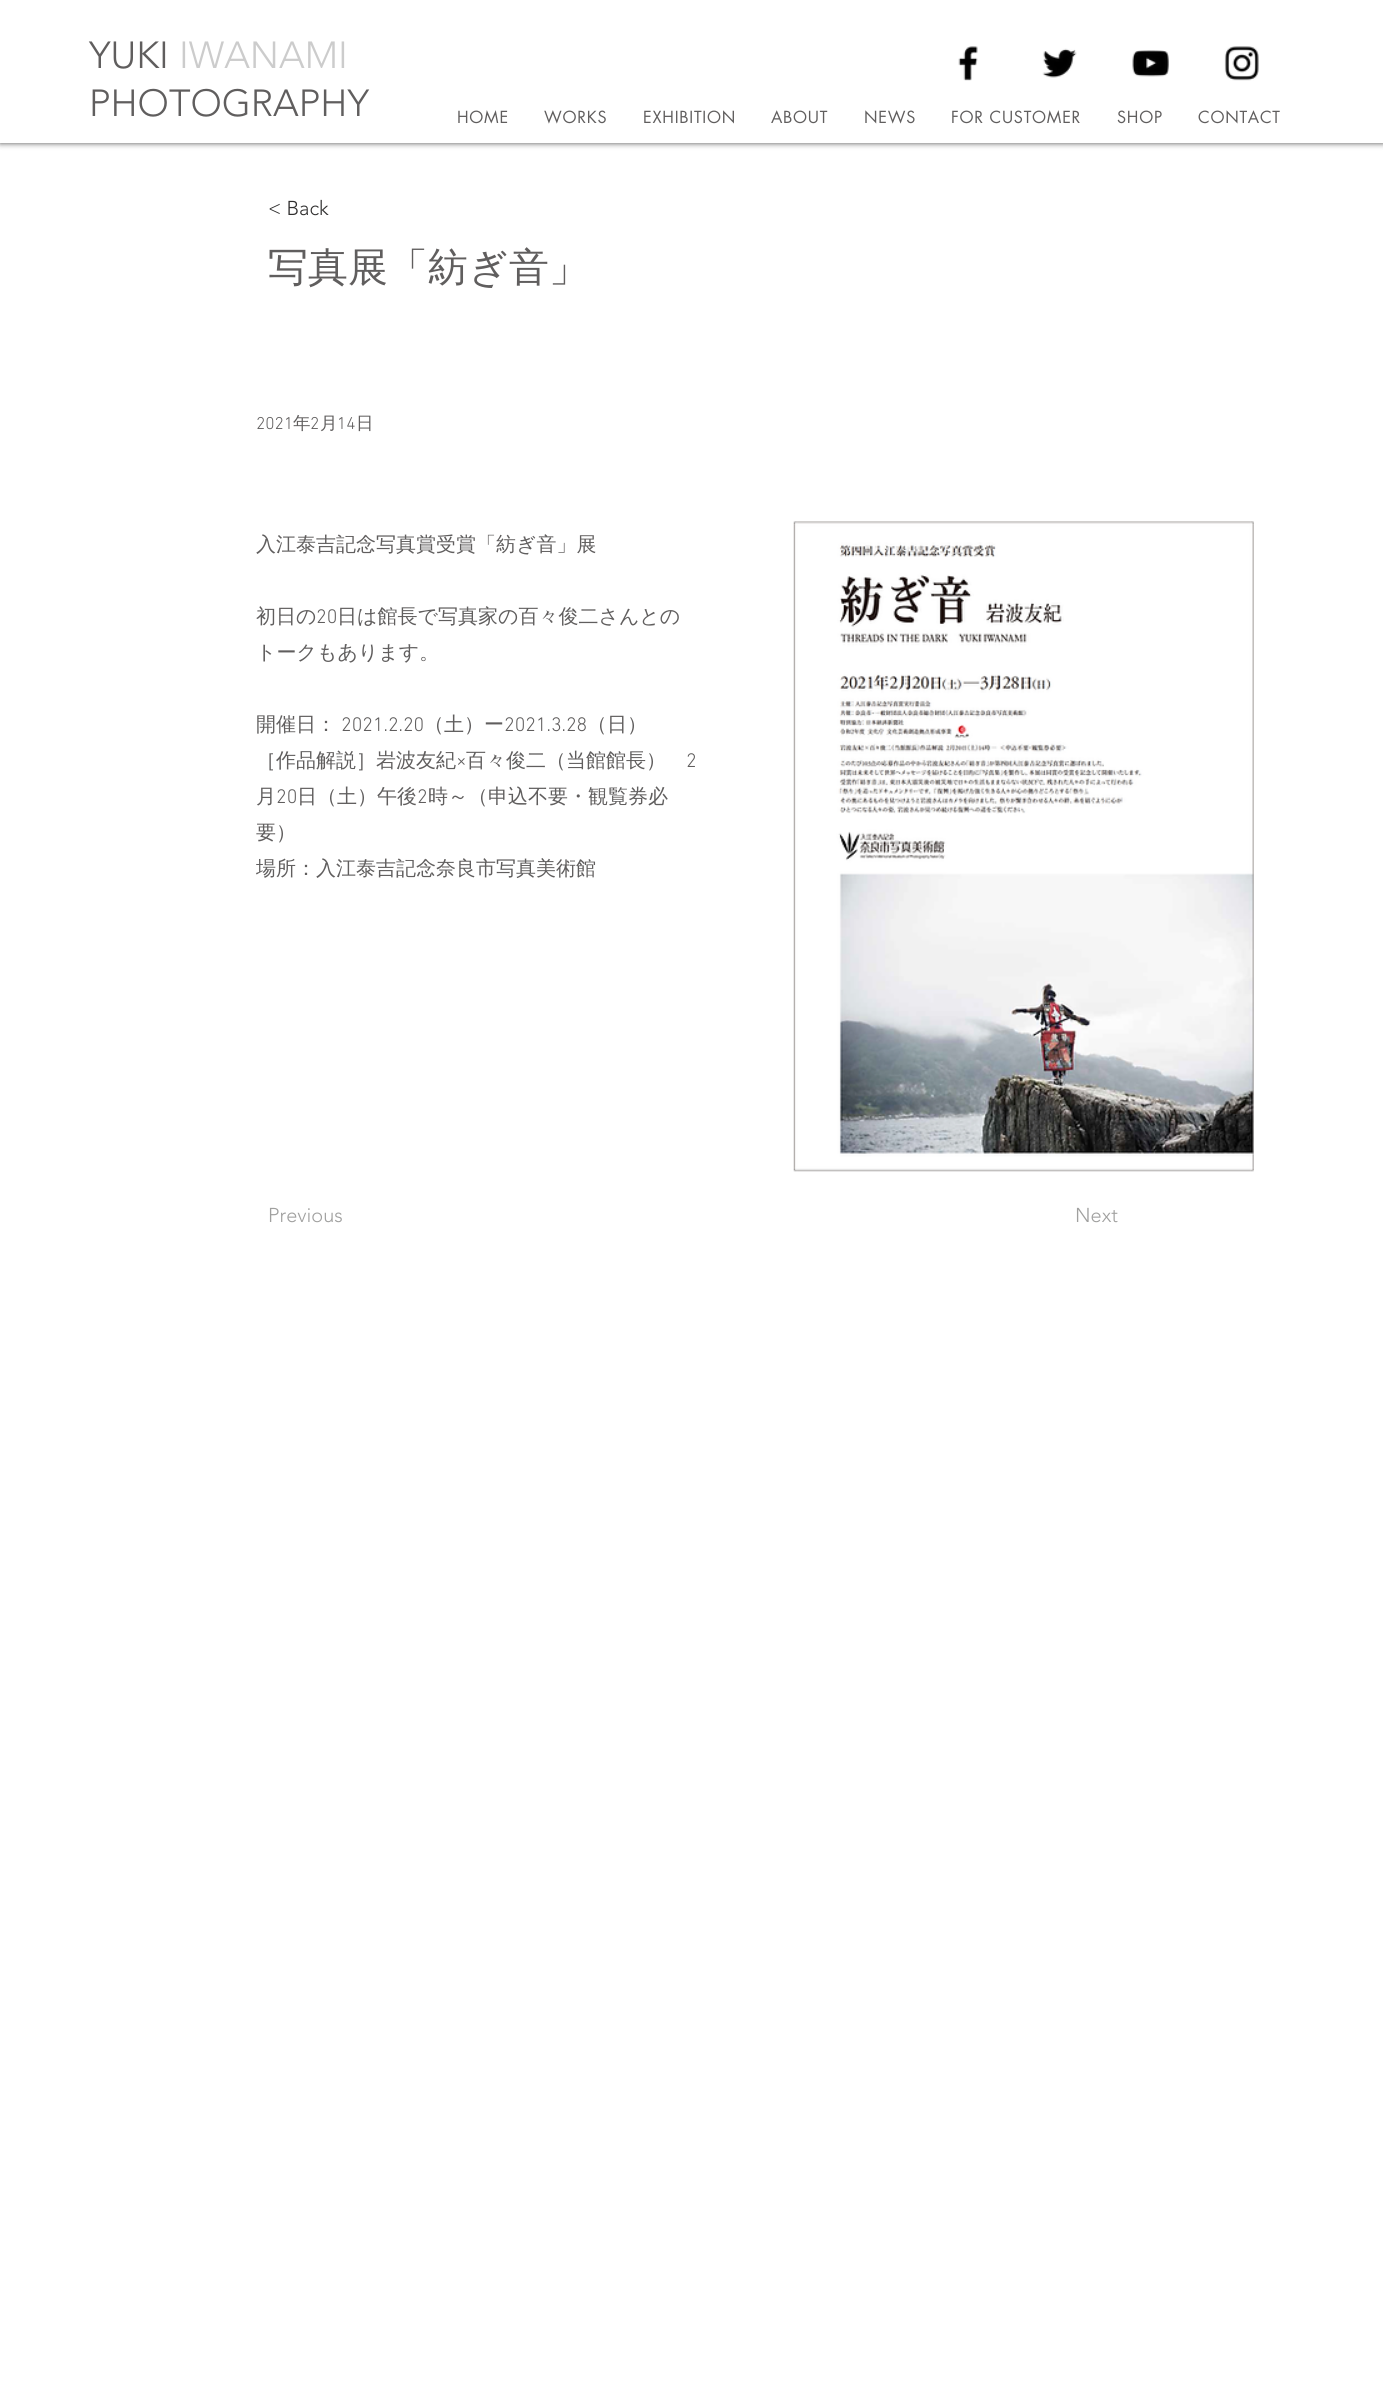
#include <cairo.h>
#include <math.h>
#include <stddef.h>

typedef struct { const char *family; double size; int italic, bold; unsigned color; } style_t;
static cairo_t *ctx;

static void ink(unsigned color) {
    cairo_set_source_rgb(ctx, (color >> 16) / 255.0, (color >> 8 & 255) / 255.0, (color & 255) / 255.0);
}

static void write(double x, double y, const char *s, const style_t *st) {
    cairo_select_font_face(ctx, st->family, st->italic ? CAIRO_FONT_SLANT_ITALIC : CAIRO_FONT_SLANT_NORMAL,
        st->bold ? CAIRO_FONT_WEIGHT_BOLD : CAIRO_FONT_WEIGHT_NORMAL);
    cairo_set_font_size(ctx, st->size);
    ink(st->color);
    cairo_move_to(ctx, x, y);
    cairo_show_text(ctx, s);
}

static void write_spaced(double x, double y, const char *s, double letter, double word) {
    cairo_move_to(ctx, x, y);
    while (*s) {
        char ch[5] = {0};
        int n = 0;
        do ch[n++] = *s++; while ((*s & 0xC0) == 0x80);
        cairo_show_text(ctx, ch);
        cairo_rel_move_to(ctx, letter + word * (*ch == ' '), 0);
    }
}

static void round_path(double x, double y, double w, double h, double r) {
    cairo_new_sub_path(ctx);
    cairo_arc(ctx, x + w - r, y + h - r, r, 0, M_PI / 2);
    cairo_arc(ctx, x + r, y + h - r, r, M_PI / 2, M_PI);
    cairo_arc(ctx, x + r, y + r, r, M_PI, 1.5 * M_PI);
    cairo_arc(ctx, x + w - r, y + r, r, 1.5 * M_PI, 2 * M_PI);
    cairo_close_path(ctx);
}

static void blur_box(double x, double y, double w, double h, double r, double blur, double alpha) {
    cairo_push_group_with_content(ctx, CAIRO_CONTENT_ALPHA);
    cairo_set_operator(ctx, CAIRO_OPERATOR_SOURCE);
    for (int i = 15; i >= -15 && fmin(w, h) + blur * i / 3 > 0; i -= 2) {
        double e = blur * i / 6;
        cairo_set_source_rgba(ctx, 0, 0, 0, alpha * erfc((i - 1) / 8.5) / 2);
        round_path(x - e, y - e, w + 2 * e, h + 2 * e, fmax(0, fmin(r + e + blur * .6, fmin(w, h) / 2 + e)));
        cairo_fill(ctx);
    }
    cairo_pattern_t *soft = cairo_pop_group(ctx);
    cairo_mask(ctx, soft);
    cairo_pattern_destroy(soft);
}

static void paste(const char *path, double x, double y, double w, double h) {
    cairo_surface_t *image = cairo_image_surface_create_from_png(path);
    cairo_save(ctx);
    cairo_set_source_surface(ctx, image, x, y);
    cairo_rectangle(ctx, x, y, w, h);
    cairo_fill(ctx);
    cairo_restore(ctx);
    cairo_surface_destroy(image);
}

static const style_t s1 = {"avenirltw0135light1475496 Light", 37.5, 0, 0, 0x605e5e};
static const style_t s2 = {"avenirltw0135light1475496 Light", 37.5, 0, 0, 0xcccccc};
static const style_t s3 = {"avenirltw0135light1475496 Light", 20, 0, 0, 0x2f2e2e};
static const style_t s4 = {"WenQuanYi Zen Hei Medium", 40, 0, 0, 0x605e5e};
static const style_t s5 = {"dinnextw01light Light", 17.5, 0, 0, 0x605e5e};
static const style_t s6 = {"WenQuanYi Zen Hei Medium", 17.5, 0, 0, 0x605e5e};
static const style_t s7 = {"WenQuanYi Zen Hei Medium", 20, 0, 0, 0x605e5e};
static const style_t s8 = {"dinnextw01light Light", 20, 0, 0, 0x605e5e};
static const style_t s9 = {"avenirltw0135light1475496 Light", 20, 0, 0, 0xa0a09f};

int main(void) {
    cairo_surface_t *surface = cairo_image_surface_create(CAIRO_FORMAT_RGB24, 1383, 2389);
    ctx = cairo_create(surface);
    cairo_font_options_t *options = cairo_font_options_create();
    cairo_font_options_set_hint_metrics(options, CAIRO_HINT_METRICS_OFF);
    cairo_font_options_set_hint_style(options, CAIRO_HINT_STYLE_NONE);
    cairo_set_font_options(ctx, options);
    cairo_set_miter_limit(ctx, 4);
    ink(0xffffff);
    cairo_paint(ctx);
    cairo_save(ctx);
    cairo_set_fill_rule(ctx, CAIRO_FILL_RULE_EVEN_ODD);
    cairo_new_path(ctx);
    cairo_move_to(ctx, 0, 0);
    cairo_line_to(ctx, 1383, 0);
    cairo_line_to(ctx, 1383, 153);
    cairo_line_to(ctx, 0, 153);
    cairo_close_path(ctx);
    cairo_move_to(ctx, 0, 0);
    cairo_line_to(ctx, 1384, 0);
    cairo_line_to(ctx, 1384, 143);
    cairo_line_to(ctx, 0, 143);
    cairo_close_path(ctx);
    cairo_clip(ctx);
    ink(0x000000);
    blur_box(0, 0, 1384, 143, 0, 3, 0.7);
    cairo_restore(ctx);
    cairo_set_source_rgba(ctx, 1, 1, 1, 0.91);
    cairo_rectangle(ctx, 0, 142, 1383, 1);
    cairo_fill(ctx);
    write(89, 68, "YUKI", &s1);
    write(179, 68, "IWANAMI", &s2);
    write(89, 116, "PHOTOGRAPHY", &s1);
    paste("pic1.png", 958, 46, 20, 35);
    paste("pic2.png", 1042, 48, 35, 30);
    paste("pic3.png", 1132, 50, 37, 27);
    paste("pic4.png", 1224, 46, 35, 35);
    cairo_select_font_face(ctx, "futura", CAIRO_FONT_SLANT_NORMAL, CAIRO_FONT_WEIGHT_NORMAL);
    cairo_set_font_size(ctx, 16.25);
    write_spaced(457, 123, "HOME", 0.75, 0);
    write_spaced(544, 123, "WORKS", 0.75, 0);
    write_spaced(643, 123, "EXHIBITION", 0.75, 0);
    write_spaced(771, 123, "ABOUT", 0.75, 0);
    write_spaced(864, 123, "NEWS", 0.75, 0);
    write_spaced(951, 123, "FOR CUSTOMER", 0.75, 0);
    write_spaced(1117, 123, "SHOP", 0.75, 0);
    write_spaced(1198, 123, "CONTACT", 0.75, 0);
    cairo_set_source_rgba(ctx, 1, 1, 1, 0.91);
    cairo_rectangle(ctx, 80, 142, 1225, 1);
    cairo_fill(ctx);
    write(268, 215, "< Back", &s3);
    write(268, 281, "写真展「紡ぎ音」", &s4);
    write(256, 429, "2021", &s5);
    write(293, 429, "年", &s6);
    write(310, 429, "2", &s5);
    write(320, 429, "月", &s6);
    write(337, 429, "14", &s5);
    write(356, 429, "日", &s6);
    write(256, 551, "入江泰吉記念写真賞受賞「紡ぎ音」展", &s7);
    write(256, 623, "初日の", &s7);
    write(316, 623, "20", &s8);
    write(337, 623, "日は館長で写真家の百々俊二さんとの", &s7);
    write(256, 659, "トークもあります。", &s7);
    write(256, 731, "開催日：", &s7);
    write(341, 731, "2021.2.20", &s8);
    write(424, 731, "（土）ー", &s7);
    write(504, 731, "2021.3.28", &s8);
    write(587, 731, "（日）", &s7);
    write(256, 767, "［作品解説］岩波友紀", &s7);
    write(456, 767, "×", &s8);
    write(466, 767, "百々俊二（当館館長）", &s7);
    write(686, 767, "2", &s8);
    write(256, 803, "月", &s7);
    write(276, 803, "20", &s8);
    write(297, 803, "日（土）午後", &s7);
    write(417, 803, "2", &s8);
    write(428, 803, "時～（申込不要・観覧券必", &s7);
    write(256, 839, "要）", &s7);
    write(256, 875, "場所：入江泰吉記念奈良市写真美術館", &s7);
    paste("pic5.png", 793, 521, 461, 651);
    write(268, 1222, "Previous", &s9);
    write(1075, 1222, "Next", &s9);
    cairo_surface_write_to_png(surface, "screenshot.png");
    cairo_font_options_destroy(options);
    cairo_destroy(ctx);
    cairo_surface_destroy(surface);
    return 0;
}
